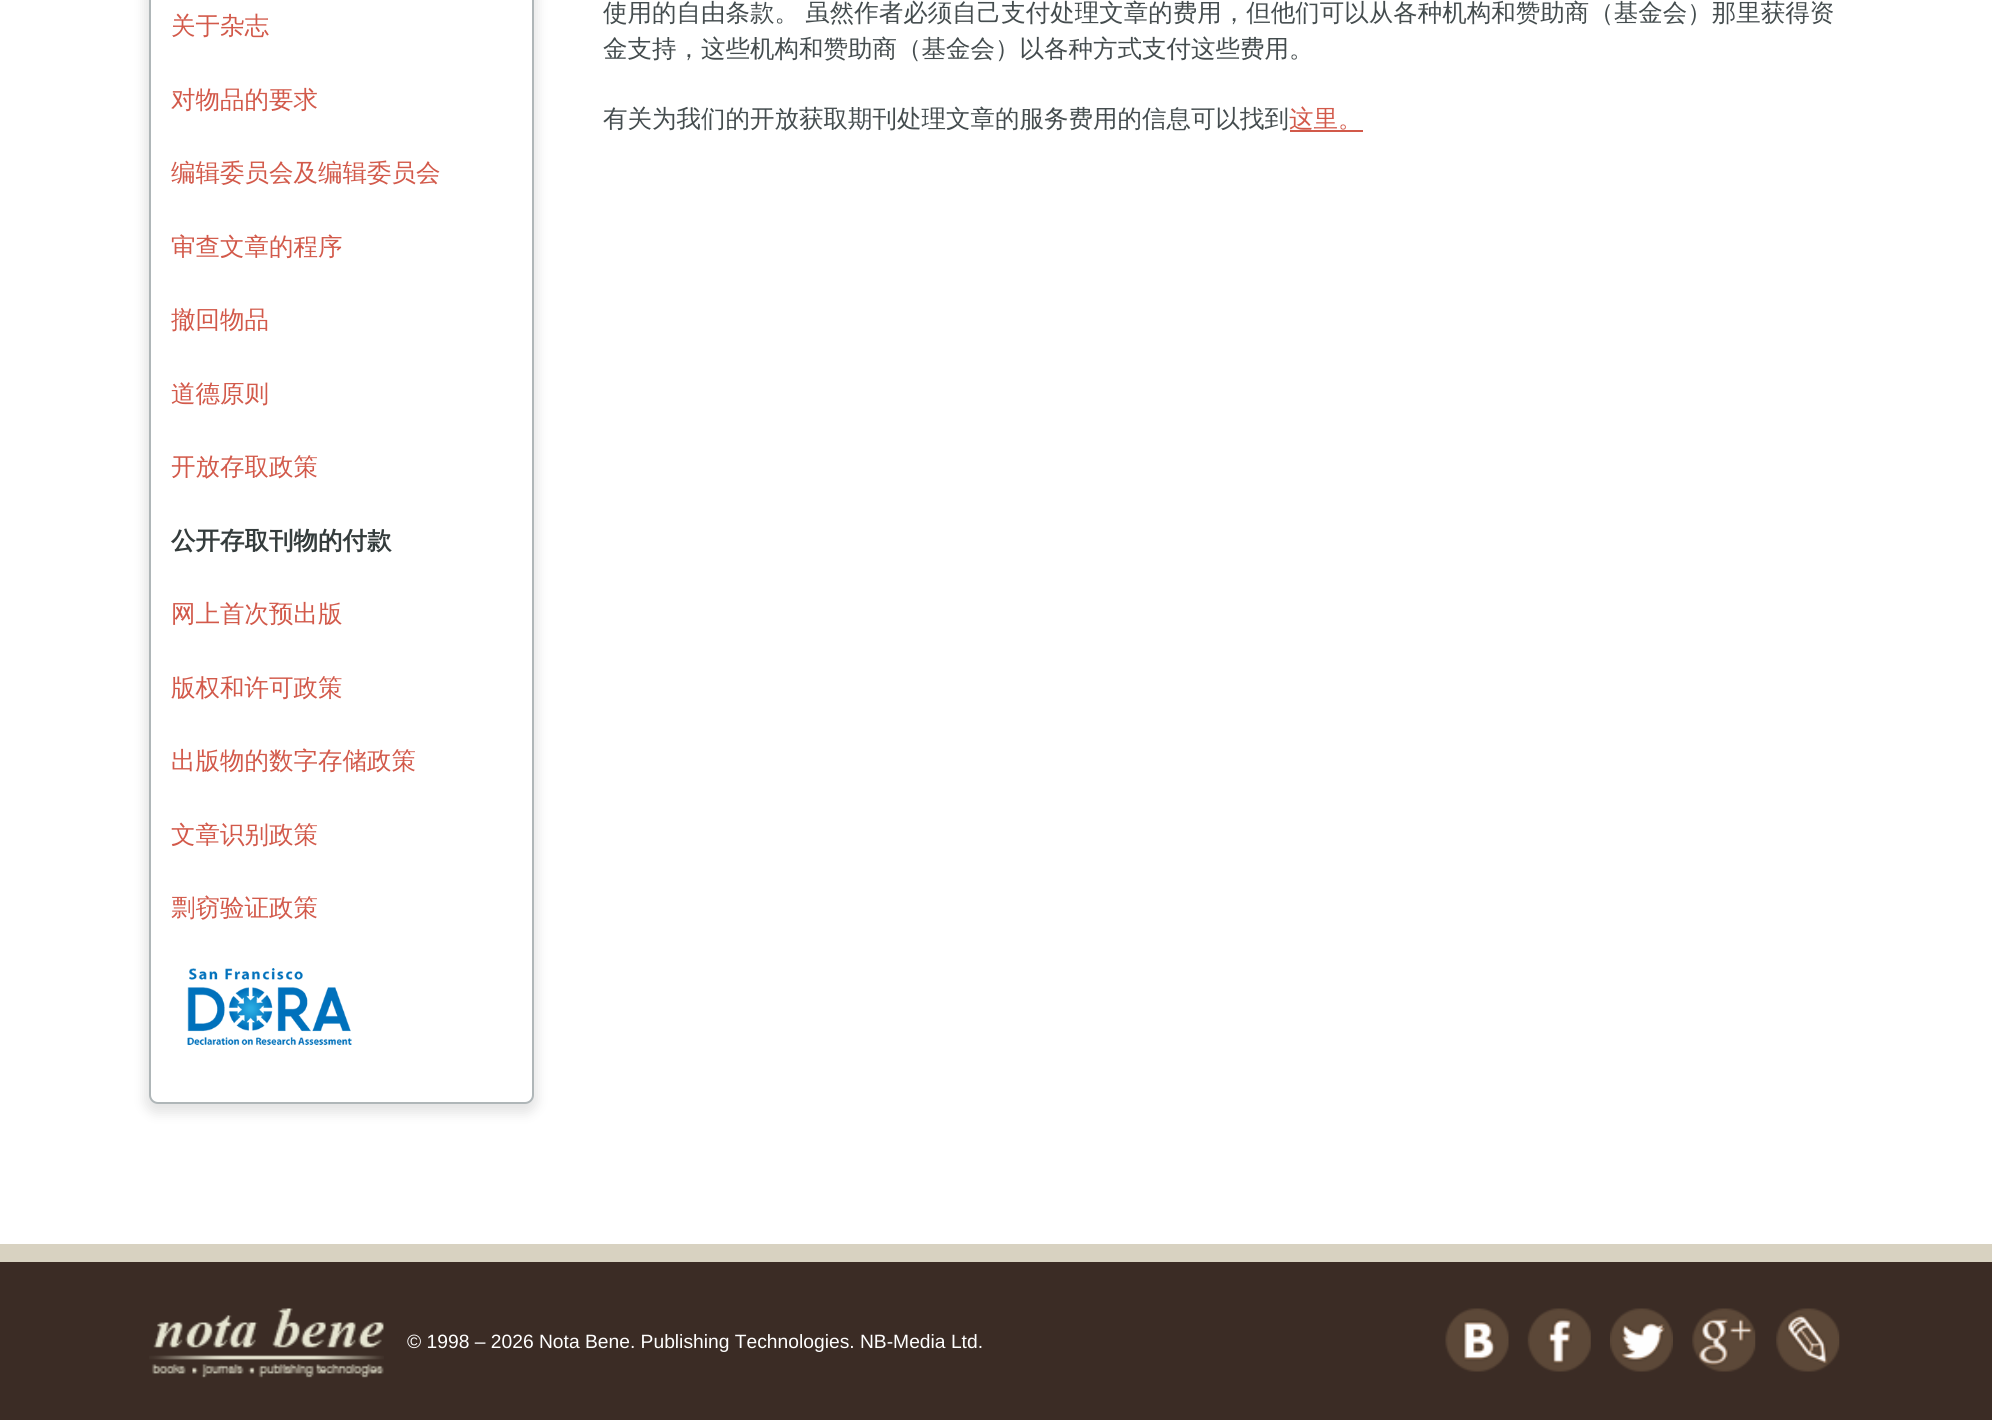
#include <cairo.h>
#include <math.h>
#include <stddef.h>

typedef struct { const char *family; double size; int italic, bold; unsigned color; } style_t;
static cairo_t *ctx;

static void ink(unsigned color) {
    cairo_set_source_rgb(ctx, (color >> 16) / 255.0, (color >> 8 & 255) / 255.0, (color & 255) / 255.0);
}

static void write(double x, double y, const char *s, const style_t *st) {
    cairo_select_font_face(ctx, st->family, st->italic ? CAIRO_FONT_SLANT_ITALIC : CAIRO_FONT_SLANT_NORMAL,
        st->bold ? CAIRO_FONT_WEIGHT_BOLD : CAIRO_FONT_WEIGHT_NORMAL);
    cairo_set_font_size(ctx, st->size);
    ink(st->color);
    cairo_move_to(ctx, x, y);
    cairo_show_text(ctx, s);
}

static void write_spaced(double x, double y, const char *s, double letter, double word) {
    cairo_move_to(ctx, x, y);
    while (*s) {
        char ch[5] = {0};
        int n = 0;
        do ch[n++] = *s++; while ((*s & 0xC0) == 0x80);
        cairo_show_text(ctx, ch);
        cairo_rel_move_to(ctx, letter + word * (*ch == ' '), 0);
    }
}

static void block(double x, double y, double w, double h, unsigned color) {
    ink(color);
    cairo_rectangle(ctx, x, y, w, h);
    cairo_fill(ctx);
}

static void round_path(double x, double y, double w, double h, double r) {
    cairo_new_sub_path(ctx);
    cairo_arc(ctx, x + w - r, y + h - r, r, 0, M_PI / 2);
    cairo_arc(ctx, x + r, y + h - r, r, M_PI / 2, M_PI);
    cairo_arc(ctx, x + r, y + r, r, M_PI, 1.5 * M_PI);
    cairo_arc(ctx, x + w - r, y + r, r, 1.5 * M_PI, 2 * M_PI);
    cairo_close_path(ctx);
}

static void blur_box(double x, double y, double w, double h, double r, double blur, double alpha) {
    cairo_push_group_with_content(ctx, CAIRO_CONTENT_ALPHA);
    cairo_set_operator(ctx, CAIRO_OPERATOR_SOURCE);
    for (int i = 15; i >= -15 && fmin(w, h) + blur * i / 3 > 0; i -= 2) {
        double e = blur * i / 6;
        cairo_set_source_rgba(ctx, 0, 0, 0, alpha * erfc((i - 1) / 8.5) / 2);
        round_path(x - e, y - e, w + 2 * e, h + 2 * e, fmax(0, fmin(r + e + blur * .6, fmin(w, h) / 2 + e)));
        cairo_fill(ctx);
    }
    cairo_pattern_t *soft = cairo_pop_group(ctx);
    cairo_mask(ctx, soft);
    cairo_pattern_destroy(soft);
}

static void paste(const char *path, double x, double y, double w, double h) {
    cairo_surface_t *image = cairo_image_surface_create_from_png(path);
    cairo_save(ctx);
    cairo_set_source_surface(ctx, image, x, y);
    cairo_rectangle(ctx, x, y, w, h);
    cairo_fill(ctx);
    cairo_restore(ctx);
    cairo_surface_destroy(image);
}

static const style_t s1 = {"WenQuanYi Zen Hei Medium", 24.5, 0, 0, 0xd2594a};
static const style_t s2 = {"WenQuanYi Zen Hei", 24.5, 0, 1, 0x343c3c};
static const style_t s3 = {"WenQuanYi Zen Hei Medium", 24.5, 0, 0, 0x444c4e};
static const style_t s4 = {"Liberation Sans", 19.25, 0, 0, 0xffffff};

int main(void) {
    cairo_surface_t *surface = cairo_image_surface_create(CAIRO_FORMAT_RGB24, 1992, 1420);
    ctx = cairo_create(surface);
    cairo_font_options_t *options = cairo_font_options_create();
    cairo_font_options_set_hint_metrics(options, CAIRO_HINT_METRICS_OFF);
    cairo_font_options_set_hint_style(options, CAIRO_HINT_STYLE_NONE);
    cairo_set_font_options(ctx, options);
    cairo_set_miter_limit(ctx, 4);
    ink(0xffffff);
    cairo_paint(ctx);
    ink(0xc8c8c8);
    blur_box(145, -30, 392, 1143, 12, 6, 0.5);
    ink(0xffffff);
    round_path(150, -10, 383, 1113, 8);
    cairo_fill_preserve(ctx);
    ink(0xafb6b8);
    cairo_stroke(ctx);
    write(171, 34, "关于杂志", &s1);
    write(171, 108, "对物品的要求", &s1);
    write(171, 181, "编辑委员会及编辑委员会", &s1);
    write(171, 255, "审查文章的程序", &s1);
    write(171, 328, "撤回物品", &s1);
    write(171, 402, "道德原则", &s1);
    write(171, 475, "开放存取政策", &s1);
    write(171, 549, "公开存取刊物的付款", &s2);
    write(171, 622, "网上首次预出版", &s1);
    write(171, 696, "版权和许可政策", &s1);
    write(171, 769, "出版物的数字存储政策", &s1);
    write(171, 843, "文章识别政策", &s1);
    write(171, 916, "剽窃验证政策", &s1);
    paste("pic1.png", 187, 968, 165, 77);
    ink(0x444c4e);
    write_spaced(603, 21, "使用的自由条款。 虽然作者必须自己支付处理文章的费用，但他们可以从各种机构和赞助商（基金会）那里获得资", 0, -1);
    write(603, 57, "金支持，这些机构和赞助商（基金会）以各种方式支付这些费用。", &s3);
    write(603, 127, "有关为我们的开放获取期刊处理文章的服务费用的信息可以找到", &s3);
    write(1289, 127, "这里。", &s1);
    block(1290, 130, 73, 2, 0xd2594a);
    block(0, 1244, 1992, 18, 0xd8d2c1);
    block(0, 1262, 1992, 158, 0x3b2c25);
    paste("pic2.png", 149, 1308, 235, 70);
    write(407, 1348, "© 1998 – 2026 Nota Bene. Publishing Technologies. NB-Media Ltd.", &s4);
    paste("pic3.png", 1445, 1308, 64, 64);
    paste("pic4.png", 1527, 1308, 64, 64);
    paste("pic5.png", 1610, 1308, 63, 64);
    paste("pic6.png", 1692, 1308, 64, 64);
    paste("pic7.png", 1776, 1308, 64, 64);
    cairo_surface_write_to_png(surface, "screenshot.png");
    cairo_font_options_destroy(options);
    cairo_destroy(ctx);
    cairo_surface_destroy(surface);
    return 0;
}
